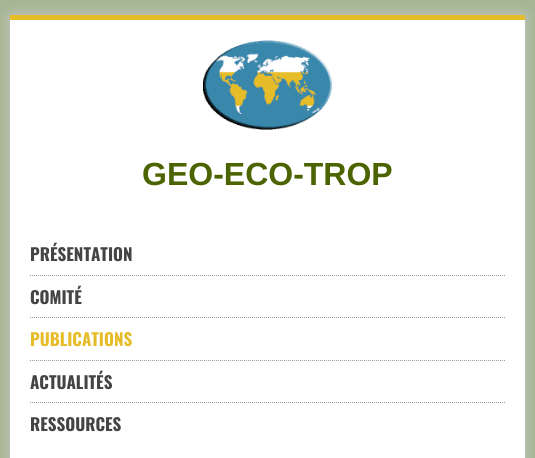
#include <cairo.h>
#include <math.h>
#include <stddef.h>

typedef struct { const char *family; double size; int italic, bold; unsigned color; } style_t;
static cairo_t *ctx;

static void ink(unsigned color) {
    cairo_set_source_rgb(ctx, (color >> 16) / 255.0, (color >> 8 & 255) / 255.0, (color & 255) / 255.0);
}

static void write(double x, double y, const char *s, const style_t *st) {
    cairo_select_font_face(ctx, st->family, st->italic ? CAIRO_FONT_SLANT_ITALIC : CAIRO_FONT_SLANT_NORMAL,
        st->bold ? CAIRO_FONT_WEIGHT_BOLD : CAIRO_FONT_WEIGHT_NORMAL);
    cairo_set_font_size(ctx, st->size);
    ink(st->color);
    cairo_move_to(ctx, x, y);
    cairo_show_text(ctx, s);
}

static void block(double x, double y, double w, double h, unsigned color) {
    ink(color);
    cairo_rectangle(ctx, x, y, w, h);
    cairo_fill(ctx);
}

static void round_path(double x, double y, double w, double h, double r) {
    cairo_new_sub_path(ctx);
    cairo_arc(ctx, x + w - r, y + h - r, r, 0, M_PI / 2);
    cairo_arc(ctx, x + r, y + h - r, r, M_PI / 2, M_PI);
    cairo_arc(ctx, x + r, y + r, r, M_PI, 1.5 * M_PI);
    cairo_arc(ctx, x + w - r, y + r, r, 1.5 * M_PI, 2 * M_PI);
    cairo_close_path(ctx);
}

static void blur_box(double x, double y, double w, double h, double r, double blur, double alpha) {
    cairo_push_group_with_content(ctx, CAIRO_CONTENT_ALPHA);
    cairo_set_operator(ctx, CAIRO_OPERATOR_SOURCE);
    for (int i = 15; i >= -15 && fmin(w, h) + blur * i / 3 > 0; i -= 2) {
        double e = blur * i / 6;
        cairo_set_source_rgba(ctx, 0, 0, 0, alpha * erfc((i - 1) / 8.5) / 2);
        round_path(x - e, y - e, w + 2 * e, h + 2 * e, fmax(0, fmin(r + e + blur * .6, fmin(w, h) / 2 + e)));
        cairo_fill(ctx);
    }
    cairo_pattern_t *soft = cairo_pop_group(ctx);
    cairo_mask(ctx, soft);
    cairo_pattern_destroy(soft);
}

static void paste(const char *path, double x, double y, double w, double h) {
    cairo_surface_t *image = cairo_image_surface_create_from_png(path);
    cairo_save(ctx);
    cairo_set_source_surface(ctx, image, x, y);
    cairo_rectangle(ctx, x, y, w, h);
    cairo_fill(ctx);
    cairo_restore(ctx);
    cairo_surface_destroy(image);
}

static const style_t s1 = {"Liberation Sans", 32, 0, 1, 0x4b6400};
static const style_t s2 = {"Oswald", 17, 0, 1, 0x444444};
static const style_t s3 = {"Oswald", 17, 0, 1, 0xe7bc29};

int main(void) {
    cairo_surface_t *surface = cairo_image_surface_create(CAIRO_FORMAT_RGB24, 535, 458);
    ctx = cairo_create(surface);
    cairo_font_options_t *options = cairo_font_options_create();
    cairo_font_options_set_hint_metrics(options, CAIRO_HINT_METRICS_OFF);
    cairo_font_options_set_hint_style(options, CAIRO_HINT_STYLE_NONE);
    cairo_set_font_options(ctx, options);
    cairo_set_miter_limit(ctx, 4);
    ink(0xa5b592);
    cairo_paint(ctx);
    ink(0xc6c6c6);
    blur_box(10, 15, 515, 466, 0, 7.5, 1);
    block(10, 20, 515, 438, 0xffffff);
    block(10, 15, 515, 5, 0xe7bc29);
    paste("pic1.png", 203, 40, 130, 90);
    write(142, 185, "GEO-ECO-TROP", &s1);
    cairo_new_path(ctx);
    cairo_move_to(ctx, 30, 275.5);
    cairo_line_to(ctx, 505, 275.5);
    ink(0x999999);
    cairo_set_line_width(ctx, 1);
    cairo_set_dash(ctx, (double[]){1, 1}, 2, 0);
    cairo_stroke(ctx);
    write(30, 261, "PRÉSENTATION", &s2);
    cairo_new_path(ctx);
    cairo_move_to(ctx, 30, 317.5);
    cairo_line_to(ctx, 505, 317.5);
    ink(0x999999);
    cairo_stroke(ctx);
    write(30, 304, "COMITÉ", &s2);
    cairo_new_path(ctx);
    cairo_move_to(ctx, 30, 360.5);
    cairo_line_to(ctx, 505, 360.5);
    ink(0x999999);
    cairo_stroke(ctx);
    write(30, 346, "PUBLICATIONS", &s3);
    cairo_new_path(ctx);
    cairo_move_to(ctx, 30, 402.5);
    cairo_line_to(ctx, 505, 402.5);
    ink(0x999999);
    cairo_stroke(ctx);
    write(30, 389, "ACTUALITÉS", &s2);
    write(30, 431, "RESSOURCES", &s2);
    cairo_surface_write_to_png(surface, "screenshot.png");
    cairo_font_options_destroy(options);
    cairo_destroy(ctx);
    cairo_surface_destroy(surface);
    return 0;
}
